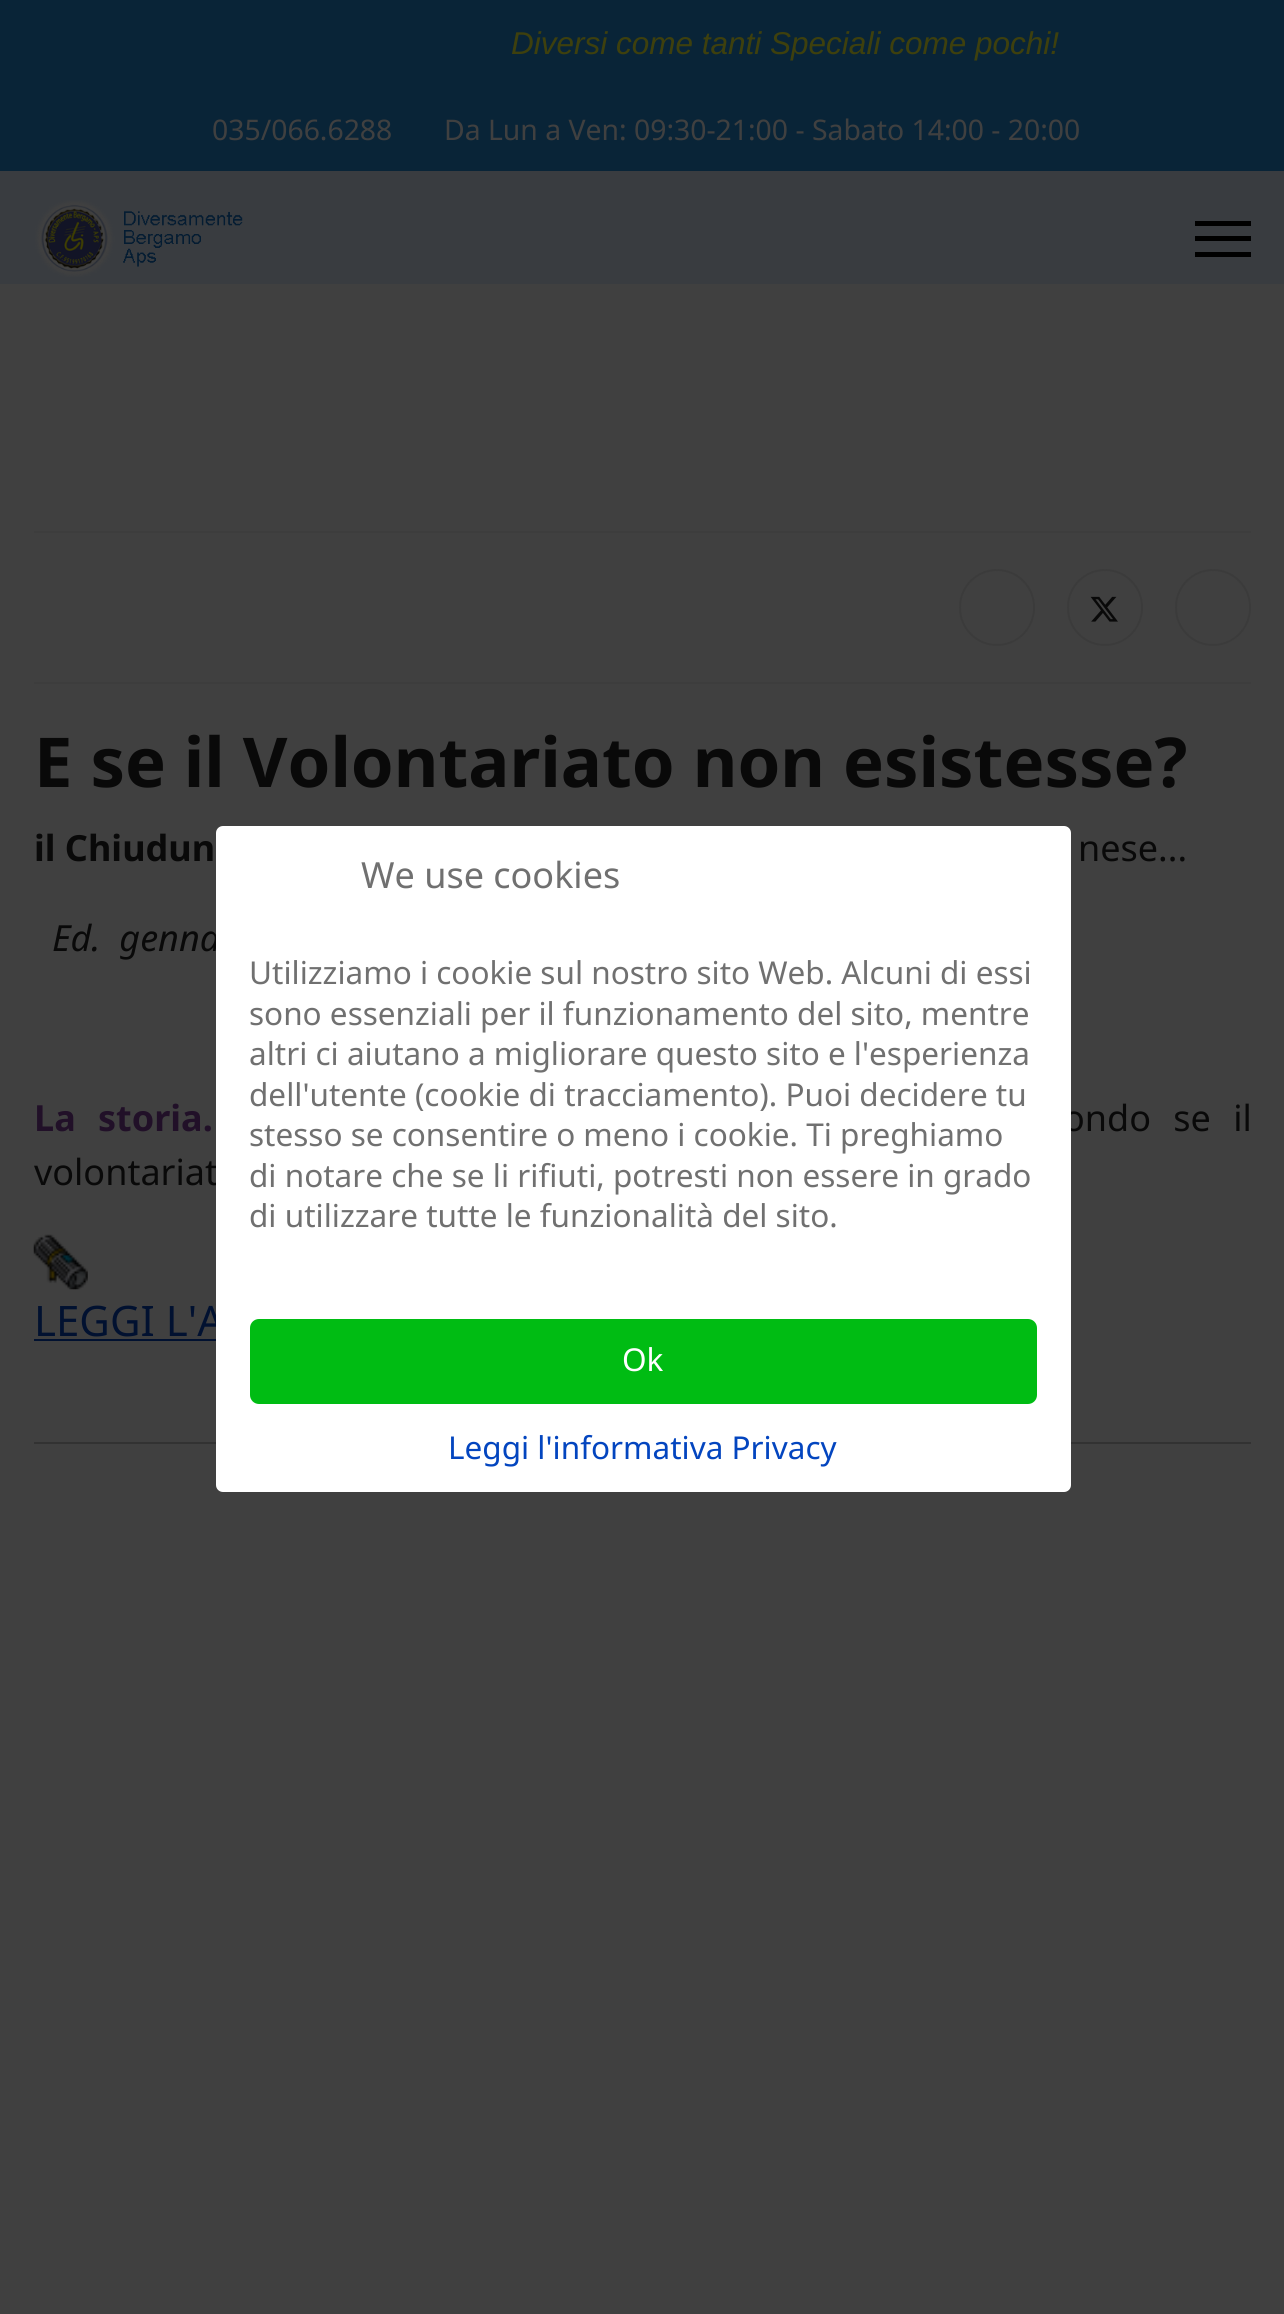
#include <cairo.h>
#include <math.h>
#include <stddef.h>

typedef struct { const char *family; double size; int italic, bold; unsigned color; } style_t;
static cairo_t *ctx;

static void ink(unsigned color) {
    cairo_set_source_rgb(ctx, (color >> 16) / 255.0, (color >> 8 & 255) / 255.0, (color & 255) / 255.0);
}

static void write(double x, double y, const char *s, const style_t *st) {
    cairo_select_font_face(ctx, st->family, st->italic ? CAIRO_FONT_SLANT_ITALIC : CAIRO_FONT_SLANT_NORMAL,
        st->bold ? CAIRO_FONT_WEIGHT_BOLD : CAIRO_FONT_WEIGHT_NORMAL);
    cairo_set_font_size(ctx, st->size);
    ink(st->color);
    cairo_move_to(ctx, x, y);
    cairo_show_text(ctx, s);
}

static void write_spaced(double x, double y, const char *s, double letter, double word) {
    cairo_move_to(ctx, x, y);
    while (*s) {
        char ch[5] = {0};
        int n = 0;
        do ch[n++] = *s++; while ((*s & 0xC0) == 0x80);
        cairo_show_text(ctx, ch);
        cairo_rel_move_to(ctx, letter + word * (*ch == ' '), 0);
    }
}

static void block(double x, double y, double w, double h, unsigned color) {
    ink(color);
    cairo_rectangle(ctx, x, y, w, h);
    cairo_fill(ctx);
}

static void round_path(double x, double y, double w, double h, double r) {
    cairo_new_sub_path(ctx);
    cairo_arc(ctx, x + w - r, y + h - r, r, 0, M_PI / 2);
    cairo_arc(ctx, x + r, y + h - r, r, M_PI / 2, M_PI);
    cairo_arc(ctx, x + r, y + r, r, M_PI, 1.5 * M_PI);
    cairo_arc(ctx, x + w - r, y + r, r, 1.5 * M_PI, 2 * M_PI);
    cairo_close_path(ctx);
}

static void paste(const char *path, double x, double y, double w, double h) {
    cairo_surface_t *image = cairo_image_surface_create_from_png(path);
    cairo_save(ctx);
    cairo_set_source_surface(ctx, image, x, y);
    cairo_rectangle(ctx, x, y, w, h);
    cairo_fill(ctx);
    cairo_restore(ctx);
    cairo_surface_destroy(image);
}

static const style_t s1 = {"Liberation Sans", 31.5, 1, 0, 0x3e400d};
static const style_t s2 = {"Noto Sans", 28.35, 0, 0, 0x404040};
static const style_t s3 = {"Noto Sans", 68.75, 0, 1, 0x090909};
static const style_t s4 = {"Noto Sans", 36, 0, 1, 0x090909};
static const style_t s5 = {"Noto Sans", 36, 0, 0, 0x090909};
static const style_t s6 = {"Noto Sans", 36, 1, 0, 0x090909};
static const style_t s7 = {"Noto Sans", 42, 0, 0, 0x011130};
static const style_t s8 = {"Noto Sans", 36, 0, 0, 0x707070};
static const style_t s9 = {"Noto Sans", 31.5, 0, 0, 0x707070};
static const style_t s10 = {"Noto Sans", 31.5, 0, 0, 0xffffff};
static const style_t s11 = {"Noto Sans", 31.5, 0, 0, 0x0345bf};

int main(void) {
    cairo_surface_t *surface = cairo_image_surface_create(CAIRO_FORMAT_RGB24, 1284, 2314);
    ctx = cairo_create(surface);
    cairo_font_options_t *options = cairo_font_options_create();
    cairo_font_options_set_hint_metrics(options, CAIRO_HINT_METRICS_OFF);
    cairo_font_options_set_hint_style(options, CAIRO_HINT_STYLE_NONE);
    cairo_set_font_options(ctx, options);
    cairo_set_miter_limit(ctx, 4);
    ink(0x404040);
    cairo_paint(ctx);
    block(0, 0, 1284, 171, 0x092437);
    write(511, 54, "Diversi come tanti Speciali come pochi!", &s1);
    write(212, 140, "035/066.6288", &s2);
    write(444, 140, "Da Lun a Ven: 09:30-21:00 - Sabato 14:00 - 20:00", &s2);
    block(0, 171, 1284, 113, 0x393c40);
    paste("pic1.png", 35, 200, 208, 77);
    block(1195, 221, 56, 5, 0x000000);
    block(1195, 236, 56, 5, 0x000000);
    block(1195, 252, 56, 5, 0x000000);
    block(34, 531, 1217, 2, 0x3d3d3d);
    block(34, 682, 1217, 2, 0x3d3d3d);
    round_path(960, 570, 74, 75, 37);
    ink(0x3b3b3b);
    cairo_stroke(ctx);
    round_path(1068, 570, 74, 75, 37);
    cairo_stroke(ctx);
    paste("pic2.png", 1090, 596, 28, 26);
    round_path(1176, 570, 74, 75, 37);
    cairo_stroke(ctx);
    write(34, 787, "E se il Volontariato non esistesse?", &s3);
    write(34, 861, "il Chiudun", &s4);
    write(1078, 861, "nese...", &s5);
    write(52, 951, "Ed.  genna", &s6);
    cairo_select_font_face(ctx, "Noto Sans", CAIRO_FONT_SLANT_NORMAL, CAIRO_FONT_WEIGHT_BOLD);
    ink(0x211028);
    write_spaced(34, 1131, "La storia.", 0, 13);
    cairo_select_font_face(ctx, "Noto Sans", CAIRO_FONT_SLANT_NORMAL, CAIRO_FONT_WEIGHT_NORMAL);
    ink(0x090909);
    write_spaced(1063, 1131, "ondo se il", 0, 13);
    write(34, 1185, "volontariat", &s5);
    paste("pic3.png", 33, 1234, 55, 56);
    write(34, 1336, "LEGGI L'A", &s7);
    block(34, 1339, 182, 2, 0x011130);
    block(34, 1442, 1217, 2, 0x323232);
    ink(0xffffff);
    round_path(216, 826, 855, 666, 7);
    cairo_fill(ctx);
    write(361, 888, "We use cookies", &s8);
    write(249, 984, "Utilizziamo i cookie sul nostro sito Web. Alcuni di essi", &s9);
    write(249, 1025, "sono essenziali per il funzionamento del sito, mentre", &s9);
    write(249, 1065, "altri ci aiutano a migliorare questo sito e l'esperienza", &s9);
    write(249, 1106, "dell'utente (cookie di tracciamento). Puoi decidere tu", &s9);
    write(249, 1146, "stesso se consentire o meno i cookie. Ti preghiamo", &s9);
    write(249, 1187, "di notare che se li rifiuti, potresti non essere in grado", &s9);
    write(249, 1227, "di utilizzare tutte le funzionalità del sito.", &s9);
    ink(0x00bc13);
    round_path(250, 1319, 787, 85, 9);
    cairo_fill(ctx);
    write(622, 1371, "Ok", &s10);
    write(448, 1459, "Leggi l'informativa Privacy", &s11);
    cairo_surface_write_to_png(surface, "screenshot.png");
    cairo_font_options_destroy(options);
    cairo_destroy(ctx);
    cairo_surface_destroy(surface);
    return 0;
}
